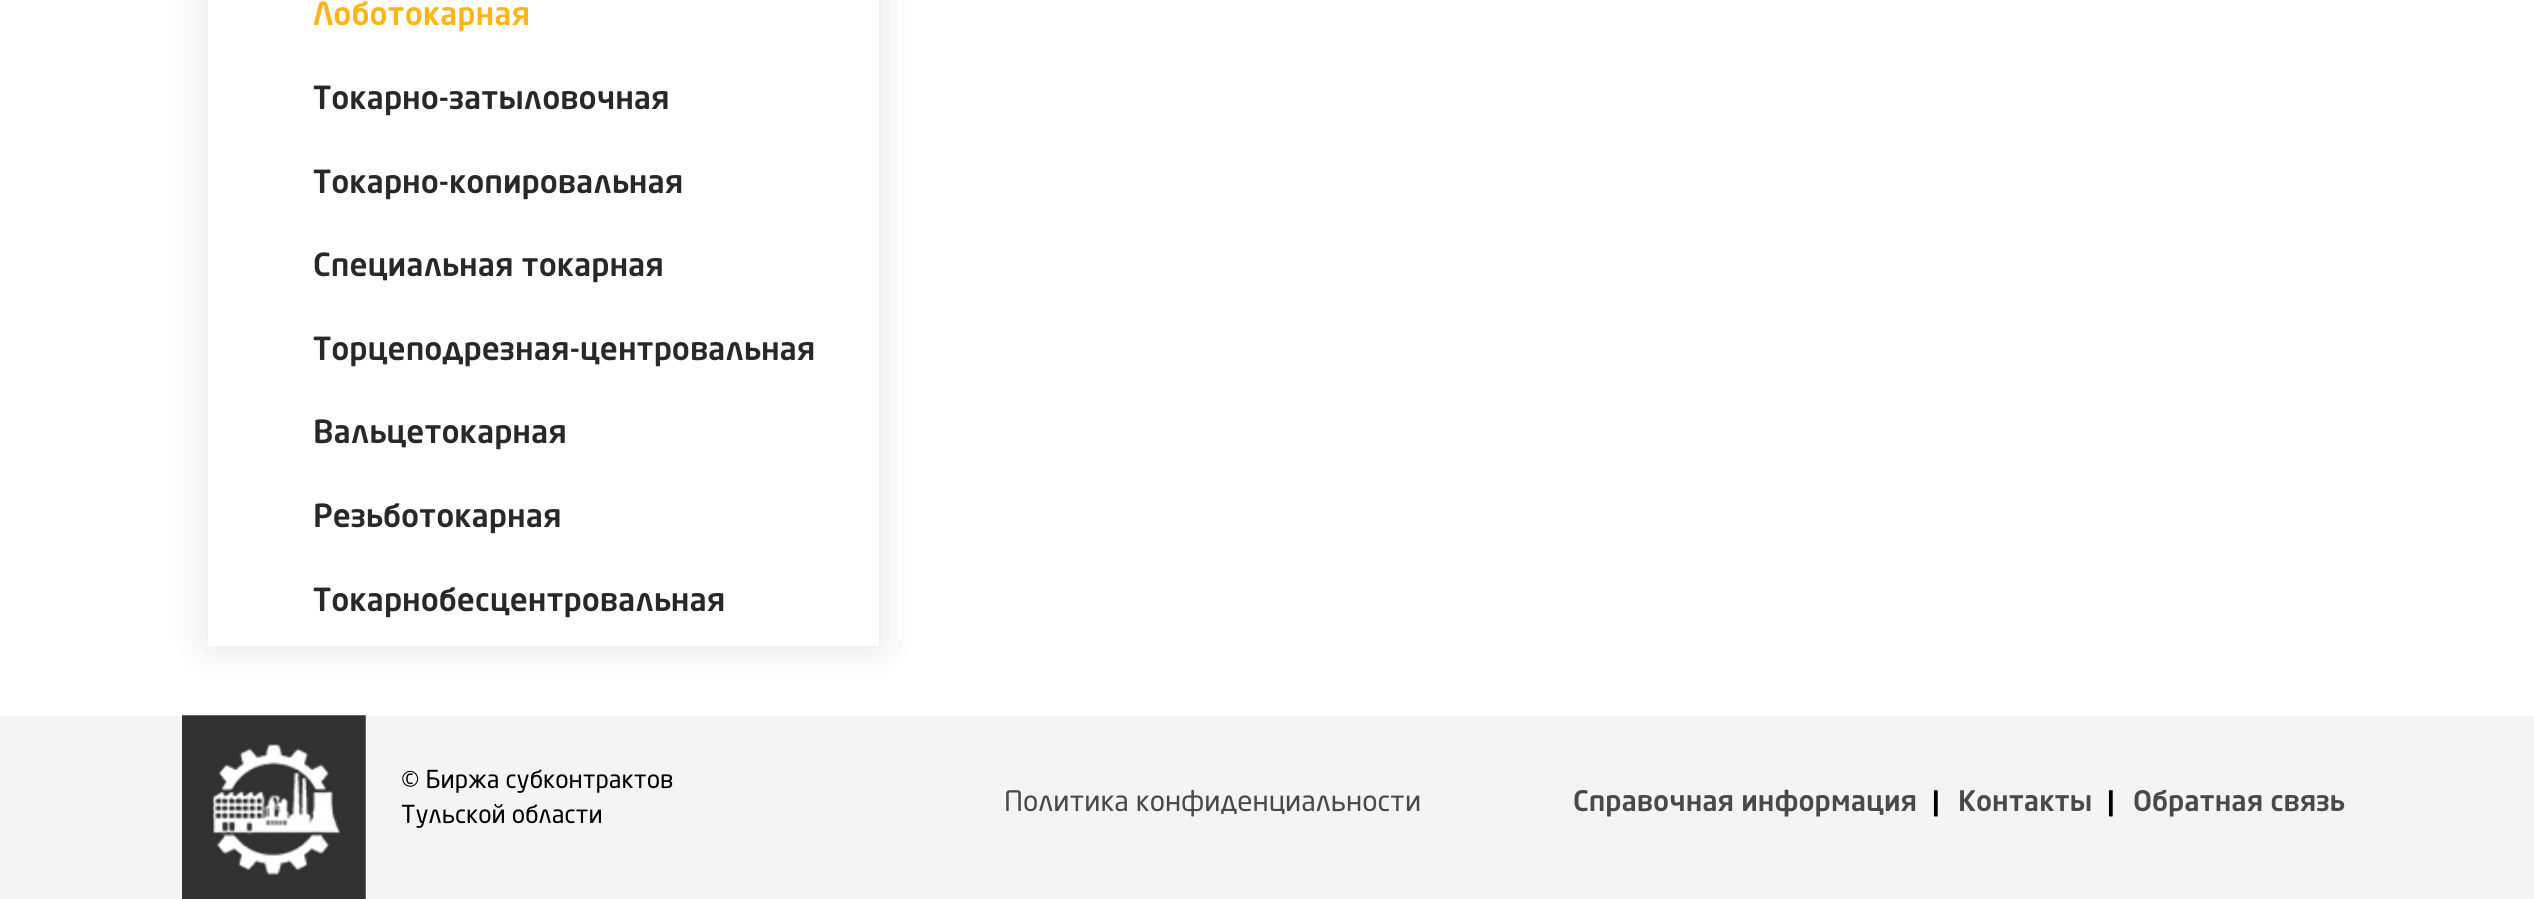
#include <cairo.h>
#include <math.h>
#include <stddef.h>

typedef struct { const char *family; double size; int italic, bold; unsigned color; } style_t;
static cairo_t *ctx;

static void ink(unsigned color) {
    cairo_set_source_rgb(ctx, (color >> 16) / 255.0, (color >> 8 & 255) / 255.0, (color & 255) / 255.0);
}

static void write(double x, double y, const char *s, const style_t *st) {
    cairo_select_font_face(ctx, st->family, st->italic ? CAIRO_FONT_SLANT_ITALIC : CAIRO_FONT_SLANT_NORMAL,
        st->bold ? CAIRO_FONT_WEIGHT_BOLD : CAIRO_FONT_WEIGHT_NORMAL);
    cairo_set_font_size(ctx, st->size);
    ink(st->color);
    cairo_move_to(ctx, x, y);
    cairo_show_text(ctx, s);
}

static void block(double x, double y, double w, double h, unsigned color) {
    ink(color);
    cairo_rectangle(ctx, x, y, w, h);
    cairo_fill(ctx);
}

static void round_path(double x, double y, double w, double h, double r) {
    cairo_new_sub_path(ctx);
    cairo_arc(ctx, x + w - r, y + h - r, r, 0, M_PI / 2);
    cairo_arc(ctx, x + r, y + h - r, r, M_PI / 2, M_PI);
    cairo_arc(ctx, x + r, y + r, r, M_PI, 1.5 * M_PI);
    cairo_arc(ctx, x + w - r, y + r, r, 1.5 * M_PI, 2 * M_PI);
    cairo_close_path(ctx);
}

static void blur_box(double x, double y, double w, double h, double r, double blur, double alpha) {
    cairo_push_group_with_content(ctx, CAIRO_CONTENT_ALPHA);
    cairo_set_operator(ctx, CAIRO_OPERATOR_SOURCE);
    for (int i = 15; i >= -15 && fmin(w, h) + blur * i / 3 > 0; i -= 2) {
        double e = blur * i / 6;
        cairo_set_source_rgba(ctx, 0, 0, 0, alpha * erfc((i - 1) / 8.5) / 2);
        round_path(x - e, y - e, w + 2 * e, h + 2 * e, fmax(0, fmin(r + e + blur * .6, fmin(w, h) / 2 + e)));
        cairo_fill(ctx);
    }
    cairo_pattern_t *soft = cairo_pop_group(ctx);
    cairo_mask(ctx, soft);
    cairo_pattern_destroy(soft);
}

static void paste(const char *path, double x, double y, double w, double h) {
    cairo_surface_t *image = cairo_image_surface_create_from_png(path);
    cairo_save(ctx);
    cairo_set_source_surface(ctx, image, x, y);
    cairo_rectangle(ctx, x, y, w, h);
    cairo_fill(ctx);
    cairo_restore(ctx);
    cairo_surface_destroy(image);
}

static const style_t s1 = {"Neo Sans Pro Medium", 31.5, 0, 0, 0xffb518};
static const style_t s2 = {"Neo Sans Pro Medium", 31.5, 0, 0, 0x282828};
static const style_t s3 = {"Neo Sans Pro", 24.5, 0, 0, 0x000000};
static const style_t s4 = {"Neo Sans Pro", 28, 0, 0, 0x494949};
static const style_t s5 = {"Neo Sans Pro Medium", 28, 0, 0, 0x494949};
static const style_t s6 = {"Neo Sans Pro Medium", 28, 0, 0, 0x000000};

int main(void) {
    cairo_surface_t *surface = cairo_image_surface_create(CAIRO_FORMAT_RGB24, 2534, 899);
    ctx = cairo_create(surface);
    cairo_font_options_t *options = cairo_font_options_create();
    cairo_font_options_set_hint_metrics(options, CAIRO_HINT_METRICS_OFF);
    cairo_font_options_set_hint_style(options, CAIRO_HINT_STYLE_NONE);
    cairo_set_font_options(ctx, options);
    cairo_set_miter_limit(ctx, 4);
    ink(0xffffff);
    cairo_paint(ctx);
    ink(0x282828);
    blur_box(208, -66, 671, 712, 0, 22, 0.07);
    blur_box(208, -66, 671, 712, 0, 22, 0.07);
    block(208, 0, 671, 646, 0xffffff);
    write(313, 25, "Лоботокарная", &s1);
    write(313, 109, "Токарно-затыловочная", &s2);
    write(313, 193, "Токарно-копировальная", &s2);
    write(313, 276, "Специальная токарная", &s2);
    write(313, 360, "Торцеподрезная-центровальная", &s2);
    write(313, 443, "Вальцетокарная", &s2);
    write(313, 527, "Резьботокарная", &s2);
    write(313, 611, "Токарнобесцентровальная", &s2);
    block(0, 716, 2534, 183, 0xf4f4f4);
    paste("pic1.png", 182, 715, 184, 184);
    write(401, 788, "© Биржа субконтрактов", &s3);
    write(401, 823, "Тульской области", &s3);
    write(1004, 811, "Политика конфиденциальности", &s4);
    write(1573, 811, "Справочная информация", &s5);
    write(1932, 811, "|", &s6);
    write(1958, 811, "Контакты", &s5);
    write(2107, 811, "|", &s6);
    write(2133, 811, "Обратная связь", &s5);
    cairo_surface_write_to_png(surface, "screenshot.png");
    cairo_font_options_destroy(options);
    cairo_destroy(ctx);
    cairo_surface_destroy(surface);
    return 0;
}
